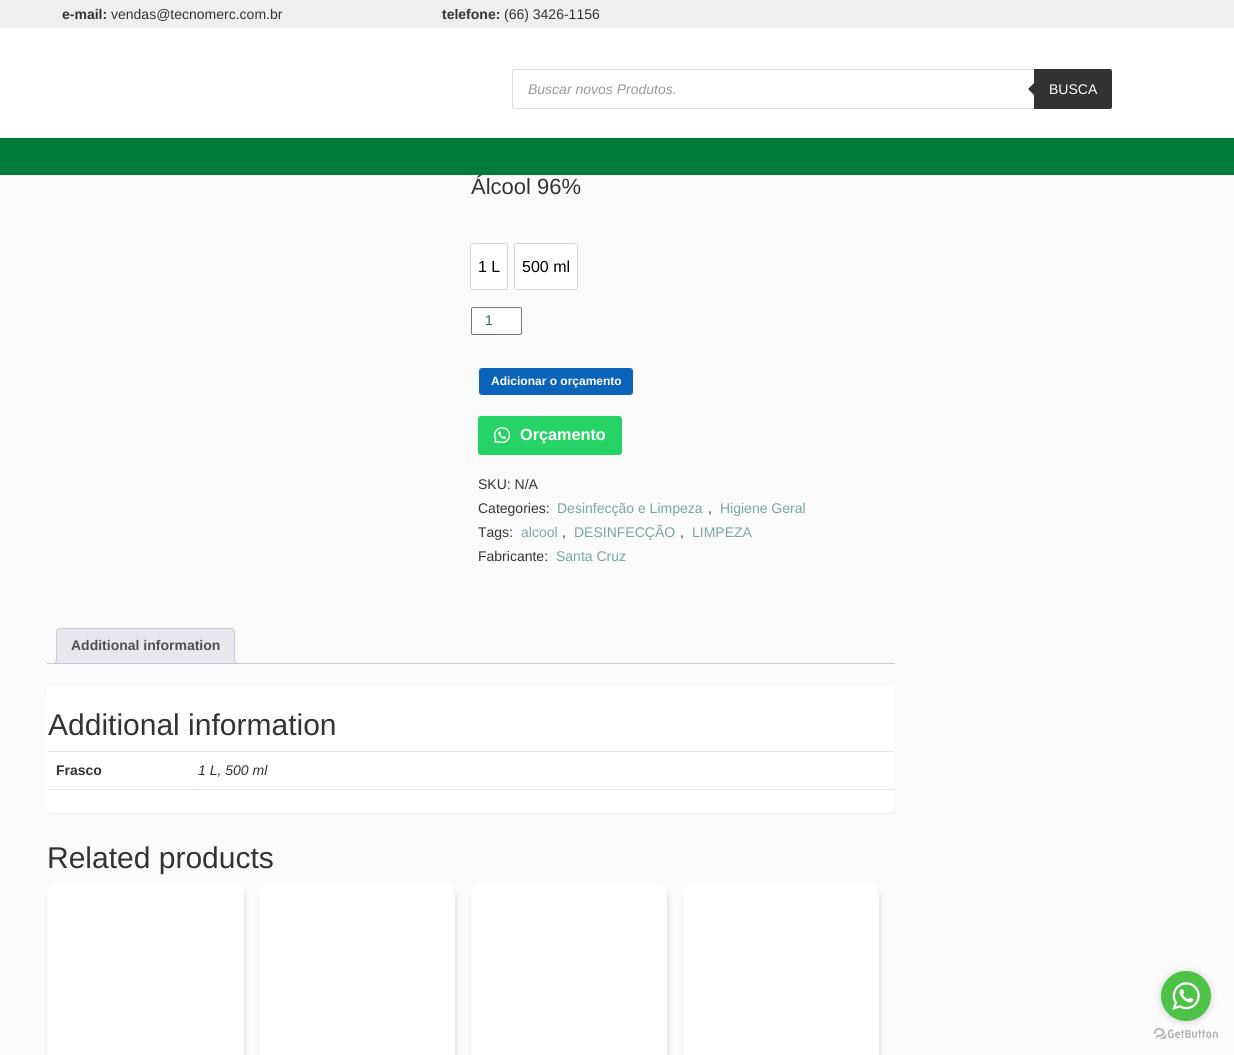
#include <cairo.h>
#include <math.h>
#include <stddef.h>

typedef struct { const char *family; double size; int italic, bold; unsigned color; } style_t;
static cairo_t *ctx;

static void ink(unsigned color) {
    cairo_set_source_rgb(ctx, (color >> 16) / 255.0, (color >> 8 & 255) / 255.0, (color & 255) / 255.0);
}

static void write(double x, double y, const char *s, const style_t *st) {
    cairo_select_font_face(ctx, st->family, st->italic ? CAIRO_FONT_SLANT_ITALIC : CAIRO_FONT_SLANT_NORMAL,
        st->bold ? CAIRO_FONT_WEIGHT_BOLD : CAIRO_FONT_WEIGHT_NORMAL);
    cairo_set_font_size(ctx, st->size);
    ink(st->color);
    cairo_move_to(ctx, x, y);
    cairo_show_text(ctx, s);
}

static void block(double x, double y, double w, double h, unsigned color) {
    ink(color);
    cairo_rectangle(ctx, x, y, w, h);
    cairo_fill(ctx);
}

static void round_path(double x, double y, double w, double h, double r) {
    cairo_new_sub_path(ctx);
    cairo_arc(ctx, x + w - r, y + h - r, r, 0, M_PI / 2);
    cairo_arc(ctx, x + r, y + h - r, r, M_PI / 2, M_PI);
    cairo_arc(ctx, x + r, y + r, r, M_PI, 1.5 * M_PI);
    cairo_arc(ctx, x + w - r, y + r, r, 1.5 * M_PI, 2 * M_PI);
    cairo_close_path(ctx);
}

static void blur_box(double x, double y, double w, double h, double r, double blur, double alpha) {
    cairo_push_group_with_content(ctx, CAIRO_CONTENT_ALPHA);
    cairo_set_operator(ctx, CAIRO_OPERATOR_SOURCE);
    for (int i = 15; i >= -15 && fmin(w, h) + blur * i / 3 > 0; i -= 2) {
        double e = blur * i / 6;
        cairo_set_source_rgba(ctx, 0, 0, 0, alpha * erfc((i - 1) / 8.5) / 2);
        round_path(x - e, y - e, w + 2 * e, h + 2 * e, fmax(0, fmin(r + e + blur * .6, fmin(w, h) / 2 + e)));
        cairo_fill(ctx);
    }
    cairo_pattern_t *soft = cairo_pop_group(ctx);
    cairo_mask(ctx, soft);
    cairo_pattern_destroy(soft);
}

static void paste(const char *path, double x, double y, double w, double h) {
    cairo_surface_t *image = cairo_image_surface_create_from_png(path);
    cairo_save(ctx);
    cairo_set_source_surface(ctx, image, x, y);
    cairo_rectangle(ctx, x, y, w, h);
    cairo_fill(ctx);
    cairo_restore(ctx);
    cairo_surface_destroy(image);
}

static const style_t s1 = {"Liberation Sans", 14, 0, 1, 0x333333};
static const style_t s2 = {"Liberation Sans", 14, 0, 0, 0x333333};
static const style_t s3 = {"Liberation Sans", 14, 1, 0, 0x999999};
static const style_t s4 = {"Liberation Sans", 14, 0, 0, 0xffffff};
static const style_t s5 = {"Liberation Sans", 22, 0, 0, 0x333333};
static const style_t s6 = {"Liberation Sans", 16, 0, 0, 0x000000};
static const style_t s7 = {"Liberation Sans", 14, 0, 0, 0x356942};
static const style_t s8 = {"Liberation Sans", 12, 0, 1, 0xffffff};
static const style_t s9 = {"Liberation Sans", 16.25, 0, 1, 0xffffff};
static const style_t s10 = {"Liberation Sans", 14, 0, 0, 0x79a5a3};
static const style_t s11 = {"Liberation Sans", 14, 0, 1, 0x515151};
static const style_t s12 = {"Liberation Sans", 30, 0, 0, 0x333333};
static const style_t s13 = {"Liberation Sans", 14, 1, 0, 0x333333};

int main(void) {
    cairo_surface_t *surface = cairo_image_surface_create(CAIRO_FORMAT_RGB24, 1234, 1055);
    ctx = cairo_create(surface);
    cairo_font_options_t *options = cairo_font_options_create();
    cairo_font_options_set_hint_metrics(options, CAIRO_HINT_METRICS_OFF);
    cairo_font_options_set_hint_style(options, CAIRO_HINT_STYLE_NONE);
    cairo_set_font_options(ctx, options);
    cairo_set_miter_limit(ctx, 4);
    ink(0xfbfbfb);
    cairo_paint(ctx);
    block(0, 0, 1234, 28, 0xefefef);
    write(62, 19, "e-mail:", &s1);
    write(111, 19, "vendas@tecnomerc.com.br", &s2);
    write(442, 19, "telefone:", &s1);
    write(504, 19, "(66) 3426-1156", &s2);
    block(0, 28, 1234, 110, 0xffffff);
    round_path(512.5, 69.5, 599, 39, 2.5);
    ink(0xdddddd);
    cairo_set_line_width(ctx, 1);
    cairo_stroke(ctx);
    write(528, 94, "Buscar novos Produtos.", &s3);
    ink(0x333333);
    cairo_new_path(ctx);
    cairo_move_to(ctx, 1034, 69);
    cairo_line_to(ctx, 1110, 69);
    cairo_curve_to(ctx, 1111, 69, 1112, 70, 1112, 71);
    cairo_line_to(ctx, 1112, 107);
    cairo_curve_to(ctx, 1112, 108, 1111, 109, 1110, 109);
    cairo_line_to(ctx, 1034, 109);
    cairo_close_path(ctx);
    cairo_fill(ctx);
    cairo_new_path(ctx);
    cairo_move_to(ctx, 1036, 81);
    cairo_line_to(ctx, 1036, 97);
    cairo_line_to(ctx, 1028, 89);
    cairo_close_path(ctx);
    cairo_fill(ctx);
    write(1049, 94, "BUSCA", &s4);
    write(471, 194, "Álcool 96%", &s5);
    block(0, 138, 1234, 37, 0x007c3a);
    round_path(470.5, 243.5, 37, 46, 2.5);
    ink(0xd1d7da);
    cairo_stroke(ctx);
    ink(0xffffff);
    round_path(471, 244, 36, 45, 2);
    cairo_fill(ctx);
    write(478, 272, "1 L", &s6);
    round_path(514.5, 243.5, 63, 46, 2.5);
    ink(0xd1d7da);
    cairo_stroke(ctx);
    ink(0xffffff);
    round_path(515, 244, 62, 45, 2);
    cairo_fill(ctx);
    write(522, 272, "500 ml", &s6);
    ink(0xffffff);
    round_path(471.5, 307.5, 50, 27, 1.5);
    cairo_fill_preserve(ctx);
    ink(0x767676);
    cairo_stroke(ctx);
    write(485, 325, "1", &s7);
    ink(0x0b63ba);
    round_path(479, 368, 154, 27, 3);
    cairo_fill(ctx);
    write(491, 385, "Adicionar o orçamento", &s8);
    ink(0x25d366);
    round_path(478, 416, 144, 39, 3);
    cairo_fill(ctx);
    paste("pic1.png", 494, 427, 16, 16);
    write(520, 440, "Orçamento", &s9);
    write(478, 489, "SKU: N/A", &s2);
    write(478, 513, "Categories:", &s2);
    write(557, 513, "Desinfecção e Limpeza", &s10);
    write(708, 513, ",", &s2);
    write(720, 513, "Higiene Geral", &s10);
    write(478, 537, "Tags:", &s2);
    write(521, 537, "alcool", &s10);
    write(562, 537, ",", &s2);
    write(574, 537, "DESINFECÇÃO", &s10);
    write(680, 537, ",", &s2);
    write(692, 537, "LIMPEZA", &s10);
    write(478, 561, "Fabricante:", &s2);
    write(556, 561, "Santa Cruz", &s10);
    ink(0xe9e6ed);
    cairo_new_path(ctx);
    cairo_move_to(ctx, 60, 628.5);
    cairo_line_to(ctx, 231, 628.5);
    cairo_curve_to(ctx, 233, 628.5, 234.5, 630, 234.5, 632);
    cairo_line_to(ctx, 234.5, 663.5);
    cairo_line_to(ctx, 56.5, 663.5);
    cairo_line_to(ctx, 56.5, 632);
    cairo_curve_to(ctx, 56.5, 630, 58, 628.5, 60, 628.5);
    cairo_close_path(ctx);
    cairo_fill_preserve(ctx);
    ink(0xcfc8d8);
    cairo_stroke(ctx);
    write(71, 650, "Additional information", &s11);
    cairo_save(ctx);
    cairo_rectangle(ctx, 47, 628, 848, 36);
    cairo_clip(ctx);
    ink(0xe9e6ed);
    cairo_new_path(ctx);
    cairo_move_to(ctx, 54, 664);
    cairo_line_to(ctx, 54, 666);
    cairo_curve_to(ctx, 57.5, 666, 59, 664.5, 59, 661);
    cairo_line_to(ctx, 57, 661);
    cairo_curve_to(ctx, 56.5, 662.5, 55.5, 663.5, 54, 664);
    cairo_close_path(ctx);
    cairo_fill(ctx);
    cairo_restore(ctx);
    ink(0xcfc8d8);
    cairo_set_fill_rule(ctx, CAIRO_FILL_RULE_EVEN_ODD);
    cairo_new_path(ctx);
    cairo_move_to(ctx, 52, 659);
    cairo_line_to(ctx, 57, 659);
    cairo_curve_to(ctx, 57, 662.5, 55.5, 664, 52, 664);
    cairo_close_path(ctx);
    cairo_move_to(ctx, 52, 659);
    cairo_line_to(ctx, 56, 659);
    cairo_curve_to(ctx, 56, 662, 55, 663, 52, 663);
    cairo_close_path(ctx);
    cairo_fill(ctx);
    cairo_save(ctx);
    cairo_set_fill_rule(ctx, CAIRO_FILL_RULE_WINDING);
    cairo_rectangle(ctx, 47, 628, 848, 36);
    cairo_clip(ctx);
    ink(0xe9e6ed);
    cairo_new_path(ctx);
    cairo_move_to(ctx, 232, 661);
    cairo_curve_to(ctx, 232, 664.5, 233.5, 666, 237, 666);
    cairo_line_to(ctx, 237, 664);
    cairo_curve_to(ctx, 235.5, 663.5, 234.5, 662.5, 234, 661);
    cairo_close_path(ctx);
    cairo_fill(ctx);
    cairo_restore(ctx);
    cairo_new_path(ctx);
    cairo_move_to(ctx, 234, 659);
    cairo_line_to(ctx, 239, 659);
    cairo_line_to(ctx, 239, 664);
    cairo_curve_to(ctx, 236.5, 664, 234, 663, 234, 660);
    cairo_close_path(ctx);
    cairo_move_to(ctx, 235, 659);
    cairo_line_to(ctx, 239, 659);
    cairo_line_to(ctx, 239, 663);
    cairo_curve_to(ctx, 237, 663, 235, 662.5, 235, 660);
    cairo_close_path(ctx);
    cairo_fill(ctx);
    block(47, 663, 848, 1, 0xcfc8d8);
    ink(0x000000);
    blur_box(47, 688, 848, 126, 4, 0.5, 0.05);
    ink(0xffffff);
    round_path(47, 687, 848, 126, 4);
    cairo_fill(ctx);
    block(48, 789, 846, 1, 0xe6e6e6);
    write(48, 735, "Additional information", &s12);
    block(48, 751, 846, 1, 0xe6e6e6);
    write(56, 775, "Frasco", &s1);
    block(198, 789, 1, 1, 0xcfcfcf);
    write(198, 775, "1 L, 500 ml", &s13);
    write(47, 868, "Related products", &s12);
    ink(0x000000);
    blur_box(48, 888, 197, 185, 10, 2.5, 0.12);
    ink(0xffffff);
    round_path(47, 884, 197, 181, 10);
    cairo_fill(ctx);
    ink(0x000000);
    blur_box(260, 888, 196, 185, 10, 2.5, 0.12);
    ink(0xffffff);
    round_path(259, 884, 196, 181, 10);
    cairo_fill(ctx);
    ink(0x000000);
    blur_box(472, 888, 196, 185, 10, 2.5, 0.12);
    ink(0xffffff);
    round_path(471, 884, 196, 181, 10);
    cairo_fill(ctx);
    ink(0x000000);
    blur_box(684, 888, 196, 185, 10, 2.5, 0.12);
    ink(0xffffff);
    round_path(683, 884, 196, 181, 10);
    cairo_fill(ctx);
    paste("pic3.png", 1154, 1028, 64, 11);
    ink(0x888888);
    blur_box(1161, 972, 50, 50, 25, 3.5, 0.4);
    ink(0x4dc247);
    cairo_arc(ctx, 1186, 996, 25, 0, 2 * M_PI);
    cairo_fill(ctx);
    paste("pic2.png", 1172, 982, 28, 28);
    cairo_surface_write_to_png(surface, "screenshot.png");
    cairo_font_options_destroy(options);
    cairo_destroy(ctx);
    cairo_surface_destroy(surface);
    return 0;
}
